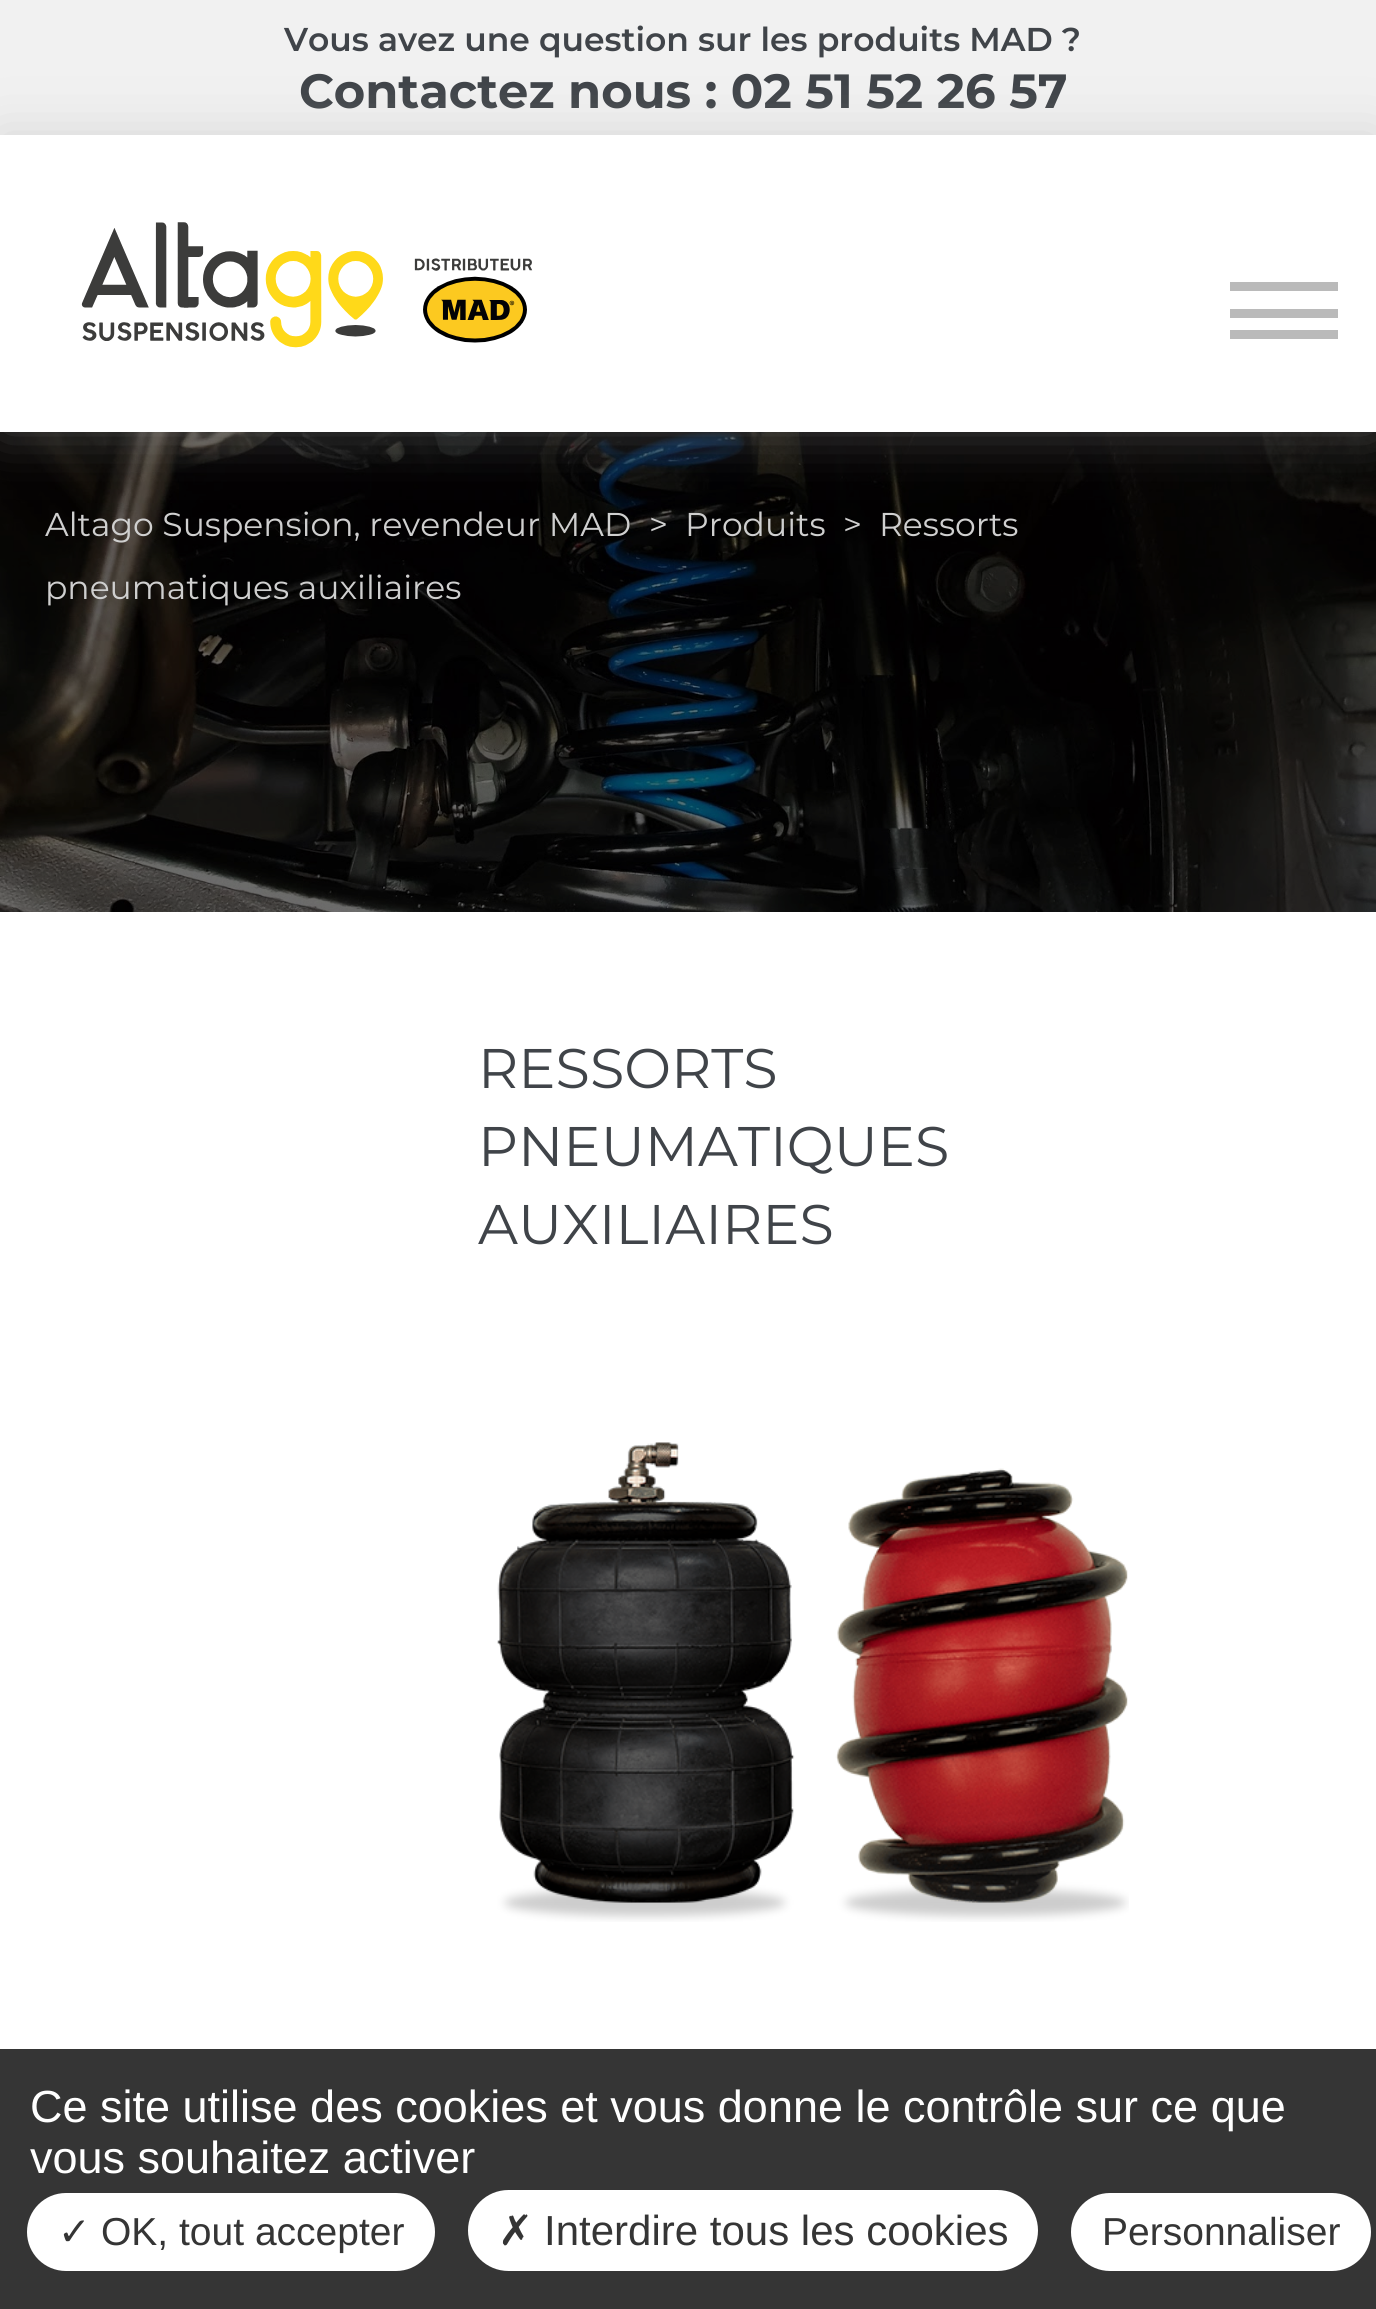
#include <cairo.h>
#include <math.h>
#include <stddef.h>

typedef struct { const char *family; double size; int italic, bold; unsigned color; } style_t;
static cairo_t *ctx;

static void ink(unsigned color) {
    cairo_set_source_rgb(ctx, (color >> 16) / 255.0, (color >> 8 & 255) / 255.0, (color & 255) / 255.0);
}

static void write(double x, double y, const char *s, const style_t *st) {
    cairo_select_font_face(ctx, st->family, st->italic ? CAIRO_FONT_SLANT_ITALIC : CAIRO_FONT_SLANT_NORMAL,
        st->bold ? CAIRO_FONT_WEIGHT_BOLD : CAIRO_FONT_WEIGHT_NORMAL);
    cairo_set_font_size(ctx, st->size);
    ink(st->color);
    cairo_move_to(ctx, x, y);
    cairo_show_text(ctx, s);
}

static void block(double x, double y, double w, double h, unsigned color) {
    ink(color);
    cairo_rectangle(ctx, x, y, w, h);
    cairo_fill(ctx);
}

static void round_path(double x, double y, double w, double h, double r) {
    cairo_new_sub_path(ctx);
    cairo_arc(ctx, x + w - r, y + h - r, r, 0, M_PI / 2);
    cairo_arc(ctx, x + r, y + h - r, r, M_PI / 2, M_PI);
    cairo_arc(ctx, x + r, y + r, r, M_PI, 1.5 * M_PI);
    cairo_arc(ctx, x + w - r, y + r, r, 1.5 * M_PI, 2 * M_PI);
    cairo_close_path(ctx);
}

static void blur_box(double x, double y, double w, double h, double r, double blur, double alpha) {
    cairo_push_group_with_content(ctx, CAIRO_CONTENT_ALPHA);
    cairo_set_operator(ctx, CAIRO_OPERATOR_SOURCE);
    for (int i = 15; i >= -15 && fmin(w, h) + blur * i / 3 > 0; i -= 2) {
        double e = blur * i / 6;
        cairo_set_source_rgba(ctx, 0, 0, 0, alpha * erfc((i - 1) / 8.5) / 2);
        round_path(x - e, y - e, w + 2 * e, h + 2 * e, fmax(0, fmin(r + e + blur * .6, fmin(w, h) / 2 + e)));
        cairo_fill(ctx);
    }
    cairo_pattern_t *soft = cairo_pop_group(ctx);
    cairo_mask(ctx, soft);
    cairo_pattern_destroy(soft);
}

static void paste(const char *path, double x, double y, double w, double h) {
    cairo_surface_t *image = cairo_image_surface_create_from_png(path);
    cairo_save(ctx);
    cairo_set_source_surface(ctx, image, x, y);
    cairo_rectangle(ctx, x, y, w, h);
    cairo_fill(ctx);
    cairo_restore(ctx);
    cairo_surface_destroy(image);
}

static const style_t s1 = {"Montserrat SemiBold", 33, 0, 0, 0x404449};
static const style_t s2 = {"Montserrat", 48, 0, 1, 0x404449};
static const style_t s3 = {"Montserrat", 33, 0, 0, 0xcfcfcf};
static const style_t s4 = {"Montserrat", 55.75, 0, 0, 0x404449};
static const style_t s5 = {"Liberation Sans", 45, 0, 0, 0xffffff};
static const style_t s6 = {"DejaVu Sans", 39, 0, 0, 0x353535};
static const style_t s7 = {"Liberation Sans", 39, 0, 0, 0x353535};
static const style_t s8 = {"DejaVu Sans", 42, 0, 0, 0x353535};
static const style_t s9 = {"Liberation Sans", 42, 0, 0, 0x353535};

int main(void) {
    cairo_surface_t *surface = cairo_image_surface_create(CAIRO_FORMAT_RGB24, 1376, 2309);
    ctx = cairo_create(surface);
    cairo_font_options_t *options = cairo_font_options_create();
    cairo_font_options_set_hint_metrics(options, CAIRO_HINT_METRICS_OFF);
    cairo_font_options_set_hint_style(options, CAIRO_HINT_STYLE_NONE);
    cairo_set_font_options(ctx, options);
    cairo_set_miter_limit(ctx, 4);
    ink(0xffffff);
    cairo_paint(ctx);
    block(0, 0, 1376, 135, 0xf1f1f1);
    write(284, 51, "Vous avez une question sur les produits MAD ?", &s1);
    write(299, 108, "Contactez nous : 02 51 52 26 57", &s2);
    paste("pic2.png", 0, 432, 1376, 480);
    cairo_save(ctx);
    cairo_set_fill_rule(ctx, CAIRO_FILL_RULE_EVEN_ODD);
    cairo_new_path(ctx);
    cairo_move_to(ctx, 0, 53);
    cairo_line_to(ctx, 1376, 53);
    cairo_line_to(ctx, 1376, 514);
    cairo_line_to(ctx, 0, 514);
    cairo_close_path(ctx);
    cairo_move_to(ctx, 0, 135);
    cairo_line_to(ctx, 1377, 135);
    cairo_line_to(ctx, 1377, 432);
    cairo_line_to(ctx, 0, 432);
    cairo_close_path(ctx);
    cairo_clip(ctx);
    ink(0xababab);
    blur_box(0, 135, 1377, 297, 0, 27, 0.4);
    cairo_restore(ctx);
    paste("pic1.png", 81, 222, 452, 126);
    block(1230, 282, 108, 9, 0xbababa);
    block(1230, 330, 108, 9, 0xbababa);
    block(1230, 309, 108, 9, 0xbababa);
    write(45, 536, "Altago Suspension, revendeur MAD", &s3);
    write(649, 536, ">", &s3);
    write(685, 536, "Produits", &s3);
    write(843, 536, ">", &s3);
    write(879, 536, "Ressorts", &s3);
    write(45, 599, "pneumatiques auxiliaires", &s3);
    write(478, 1088, "RESSORTS", &s4);
    write(478, 1166, "PNEUMATIQUES", &s4);
    write(478, 1244, "AUXILIAIRES", &s4);
    paste("pic3.png", 497, 1442, 632, 480);
    block(0, 2049, 1376, 260, 0x353535);
    write(30, 2122, "Ce site utilise des cookies et vous donne le contrôle sur ce que", &s5);
    write(30, 2173, "vous souhaitez activer", &s5);
    round_path(27, 2193, 408, 78, 39);
    cairo_fill(ctx);
    write(58, 2245, "✓", &s6);
    write(101, 2245, "OK, tout accepter", &s7);
    ink(0xffffff);
    round_path(468, 2190, 570, 81, 40.5);
    cairo_fill(ctx);
    write(498, 2245, "✗", &s8);
    write(544, 2245, "Interdire tous les cookies", &s9);
    ink(0xffffff);
    round_path(1071, 2193, 300, 78, 39);
    cairo_fill(ctx);
    write(1102, 2245, "Personnaliser", &s7);
    cairo_surface_write_to_png(surface, "screenshot.png");
    cairo_font_options_destroy(options);
    cairo_destroy(ctx);
    cairo_surface_destroy(surface);
    return 0;
}
